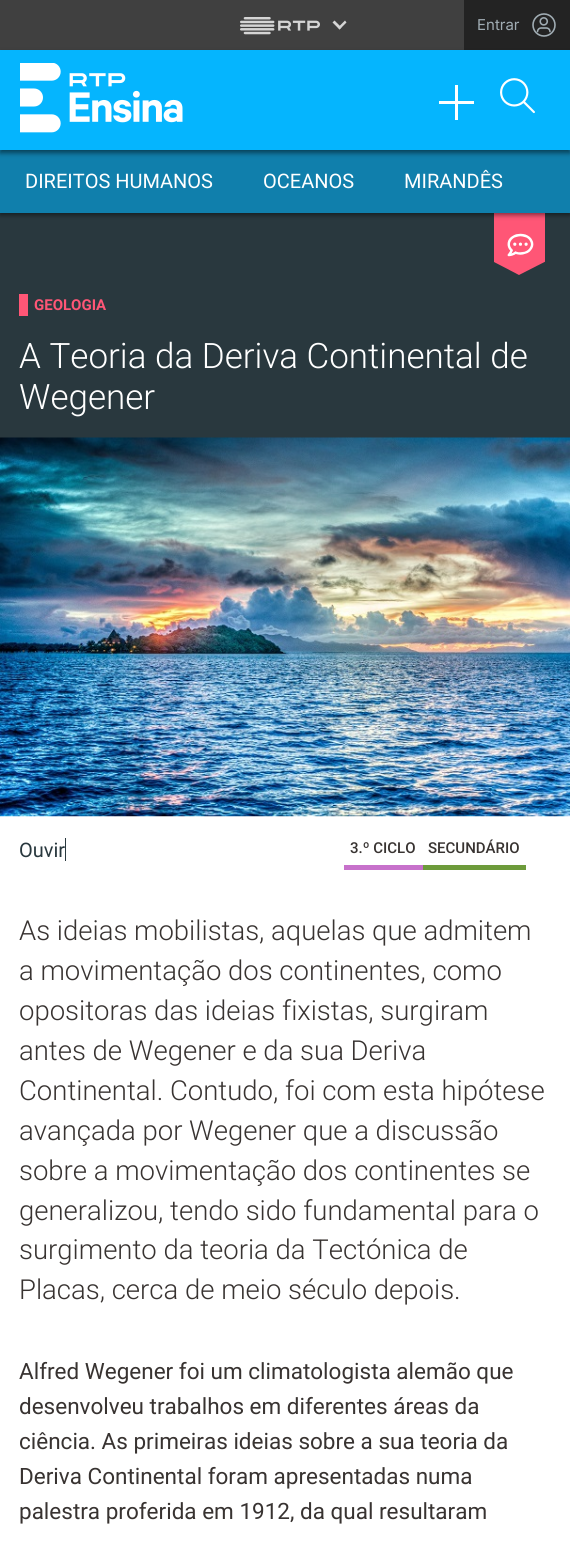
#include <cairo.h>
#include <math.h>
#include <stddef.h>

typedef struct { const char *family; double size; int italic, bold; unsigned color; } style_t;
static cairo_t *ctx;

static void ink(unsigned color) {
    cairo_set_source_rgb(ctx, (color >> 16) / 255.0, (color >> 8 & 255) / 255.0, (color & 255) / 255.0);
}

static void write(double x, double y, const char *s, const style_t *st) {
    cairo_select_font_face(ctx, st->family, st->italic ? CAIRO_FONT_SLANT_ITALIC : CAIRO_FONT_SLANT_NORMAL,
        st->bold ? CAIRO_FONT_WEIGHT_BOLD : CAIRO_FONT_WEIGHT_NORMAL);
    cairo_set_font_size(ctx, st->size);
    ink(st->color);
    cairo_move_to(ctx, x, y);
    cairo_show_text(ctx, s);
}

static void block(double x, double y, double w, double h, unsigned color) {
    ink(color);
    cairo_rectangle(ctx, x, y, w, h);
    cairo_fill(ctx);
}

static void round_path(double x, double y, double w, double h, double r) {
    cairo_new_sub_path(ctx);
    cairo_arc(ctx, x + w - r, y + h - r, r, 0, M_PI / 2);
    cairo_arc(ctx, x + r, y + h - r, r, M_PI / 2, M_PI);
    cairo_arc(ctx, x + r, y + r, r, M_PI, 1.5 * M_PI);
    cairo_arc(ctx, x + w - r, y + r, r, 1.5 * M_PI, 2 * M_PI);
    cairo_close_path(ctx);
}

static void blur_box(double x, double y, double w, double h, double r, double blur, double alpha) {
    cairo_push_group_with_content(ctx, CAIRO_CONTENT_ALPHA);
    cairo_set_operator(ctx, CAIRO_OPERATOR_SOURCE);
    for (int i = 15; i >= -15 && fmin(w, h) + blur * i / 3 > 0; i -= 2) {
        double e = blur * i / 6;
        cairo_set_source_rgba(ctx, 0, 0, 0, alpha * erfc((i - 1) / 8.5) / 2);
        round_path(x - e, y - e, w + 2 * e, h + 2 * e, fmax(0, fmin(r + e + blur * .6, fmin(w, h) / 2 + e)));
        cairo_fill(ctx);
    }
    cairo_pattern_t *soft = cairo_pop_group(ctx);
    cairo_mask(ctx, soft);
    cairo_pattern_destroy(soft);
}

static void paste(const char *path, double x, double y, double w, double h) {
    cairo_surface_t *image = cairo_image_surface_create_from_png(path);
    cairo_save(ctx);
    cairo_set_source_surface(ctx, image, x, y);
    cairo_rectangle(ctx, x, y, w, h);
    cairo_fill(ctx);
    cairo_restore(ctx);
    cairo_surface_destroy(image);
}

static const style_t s1 = {"Inter", 15, 0, 0, 0xa0acb3};
static const style_t s2 = {"Roboto", 20, 0, 0, 0xffffff};
static const style_t s3 = {"Roboto", 15, 0, 1, 0xff5676};
static const style_t s4 = {"Roboto Light", 35, 0, 0, 0xffffff};
static const style_t s5 = {"Roboto", 20, 0, 0, 0x29383e};
static const style_t s6 = {"Roboto Medium", 15, 0, 0, 0x383331};
static const style_t s7 = {"Roboto Light", 27.5, 0, 0, 0x383331};
static const style_t s8 = {"Roboto", 22.5, 0, 0, 0x383331};

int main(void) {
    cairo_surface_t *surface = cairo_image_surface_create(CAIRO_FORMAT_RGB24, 570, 1541);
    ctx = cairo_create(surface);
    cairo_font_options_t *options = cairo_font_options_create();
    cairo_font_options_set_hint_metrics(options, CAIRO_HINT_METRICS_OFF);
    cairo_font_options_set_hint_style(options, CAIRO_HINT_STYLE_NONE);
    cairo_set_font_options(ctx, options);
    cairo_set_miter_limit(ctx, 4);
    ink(0xffffff);
    cairo_paint(ctx);
    block(0, 0, 464, 50, 0x404040);
    paste("pic1.png", 240, 17, 80, 18);
    ink(0xd5d5d5);
    cairo_new_path(ctx);
    cairo_move_to(ctx, 345, 20.5);
    cairo_line_to(ctx, 346.5, 22.5);
    cairo_line_to(ctx, 339.5, 29.5);
    cairo_line_to(ctx, 338, 27.5);
    cairo_close_path(ctx);
    cairo_fill(ctx);
    cairo_new_path(ctx);
    cairo_move_to(ctx, 334.5, 20.5);
    cairo_line_to(ctx, 341.5, 27.5);
    cairo_line_to(ctx, 339.5, 29.5);
    cairo_line_to(ctx, 332.5, 22.5);
    cairo_close_path(ctx);
    cairo_fill(ctx);
    block(464, 0, 106, 50, 0x232323);
    write(477, 30, "Entrar", &s1);
    paste("pic2.png", 532, 13, 24, 24);
    block(0, 213, 570, 225, 0x29383e);
    paste("pic5.png", 494, 213, 51, 62);
    ink(0x000000);
    blur_box(0, 153, 570, 62, 0, 2.5, 0.5);
    block(0, 150, 570, 63, 0x107fac);
    ink(0x000000);
    blur_box(0, 53, 570, 100, 0, 2.5, 0.5);
    block(0, 50, 570, 100, 0x05b5fe);
    paste("pic3.png", 20, 63, 163, 70);
    block(455, 85, 3, 35, 0xffffff);
    block(439, 101, 35, 3, 0xffffff);
    paste("pic4.png", 500, 78, 35, 36);
    write(25, 188, "DIREITOS HUMANOS", &s2);
    write(263, 188, "OCEANOS", &s2);
    write(404, 188, "MIRANDÊS", &s2);
    block(19, 294, 9, 22, 0xff5676);
    write(34, 310, "GEOLOGIA", &s3);
    write(19, 368, "A Teoria da Deriva Continental de", &s4);
    write(19, 409, "Wegener", &s4);
    paste("pic6.png", 0, 437, 570, 380);
    write(19, 857, "Ouvir", &s5);
    block(65, 838, 1, 23, 0x29383e);
    block(344, 865, 79, 5, 0xc771cb);
    write(350, 853, "3.º CICLO", &s6);
    block(423, 865, 103, 5, 0x6d9b3b);
    write(428, 853, "SECUNDÁRIO", &s6);
    write(19, 940, "As ideias mobilistas, aquelas que admitem", &s7);
    write(19, 980, "a movimentação dos continentes, como", &s7);
    write(19, 1020, "opositoras das ideias fixistas, surgiram", &s7);
    write(19, 1060, "antes de Wegener e da sua Deriva", &s7);
    write(19, 1100, "Continental. Contudo, foi com esta hipótese", &s7);
    write(19, 1140, "avançada por Wegener que a discussão", &s7);
    write(19, 1180, "sobre a movimentação dos continentes se", &s7);
    write(19, 1220, "generalizou, tendo sido fundamental para o", &s7);
    write(19, 1259, "surgimento da teoria da Tectónica de", &s7);
    write(19, 1299, "Placas, cerca de meio século depois.", &s7);
    write(19, 1379, "Alfred Wegener foi um climatologista alemão que", &s8);
    write(19, 1414, "desenvolveu trabalhos em diferentes áreas da", &s8);
    write(19, 1449, "ciência. As primeiras ideias sobre a sua teoria da", &s8);
    write(19, 1484, "Deriva Continental foram apresentadas numa", &s8);
    write(19, 1519, "palestra proferida em 1912, da qual resultaram", &s8);
    cairo_surface_write_to_png(surface, "screenshot.png");
    cairo_font_options_destroy(options);
    cairo_destroy(ctx);
    cairo_surface_destroy(surface);
    return 0;
}
